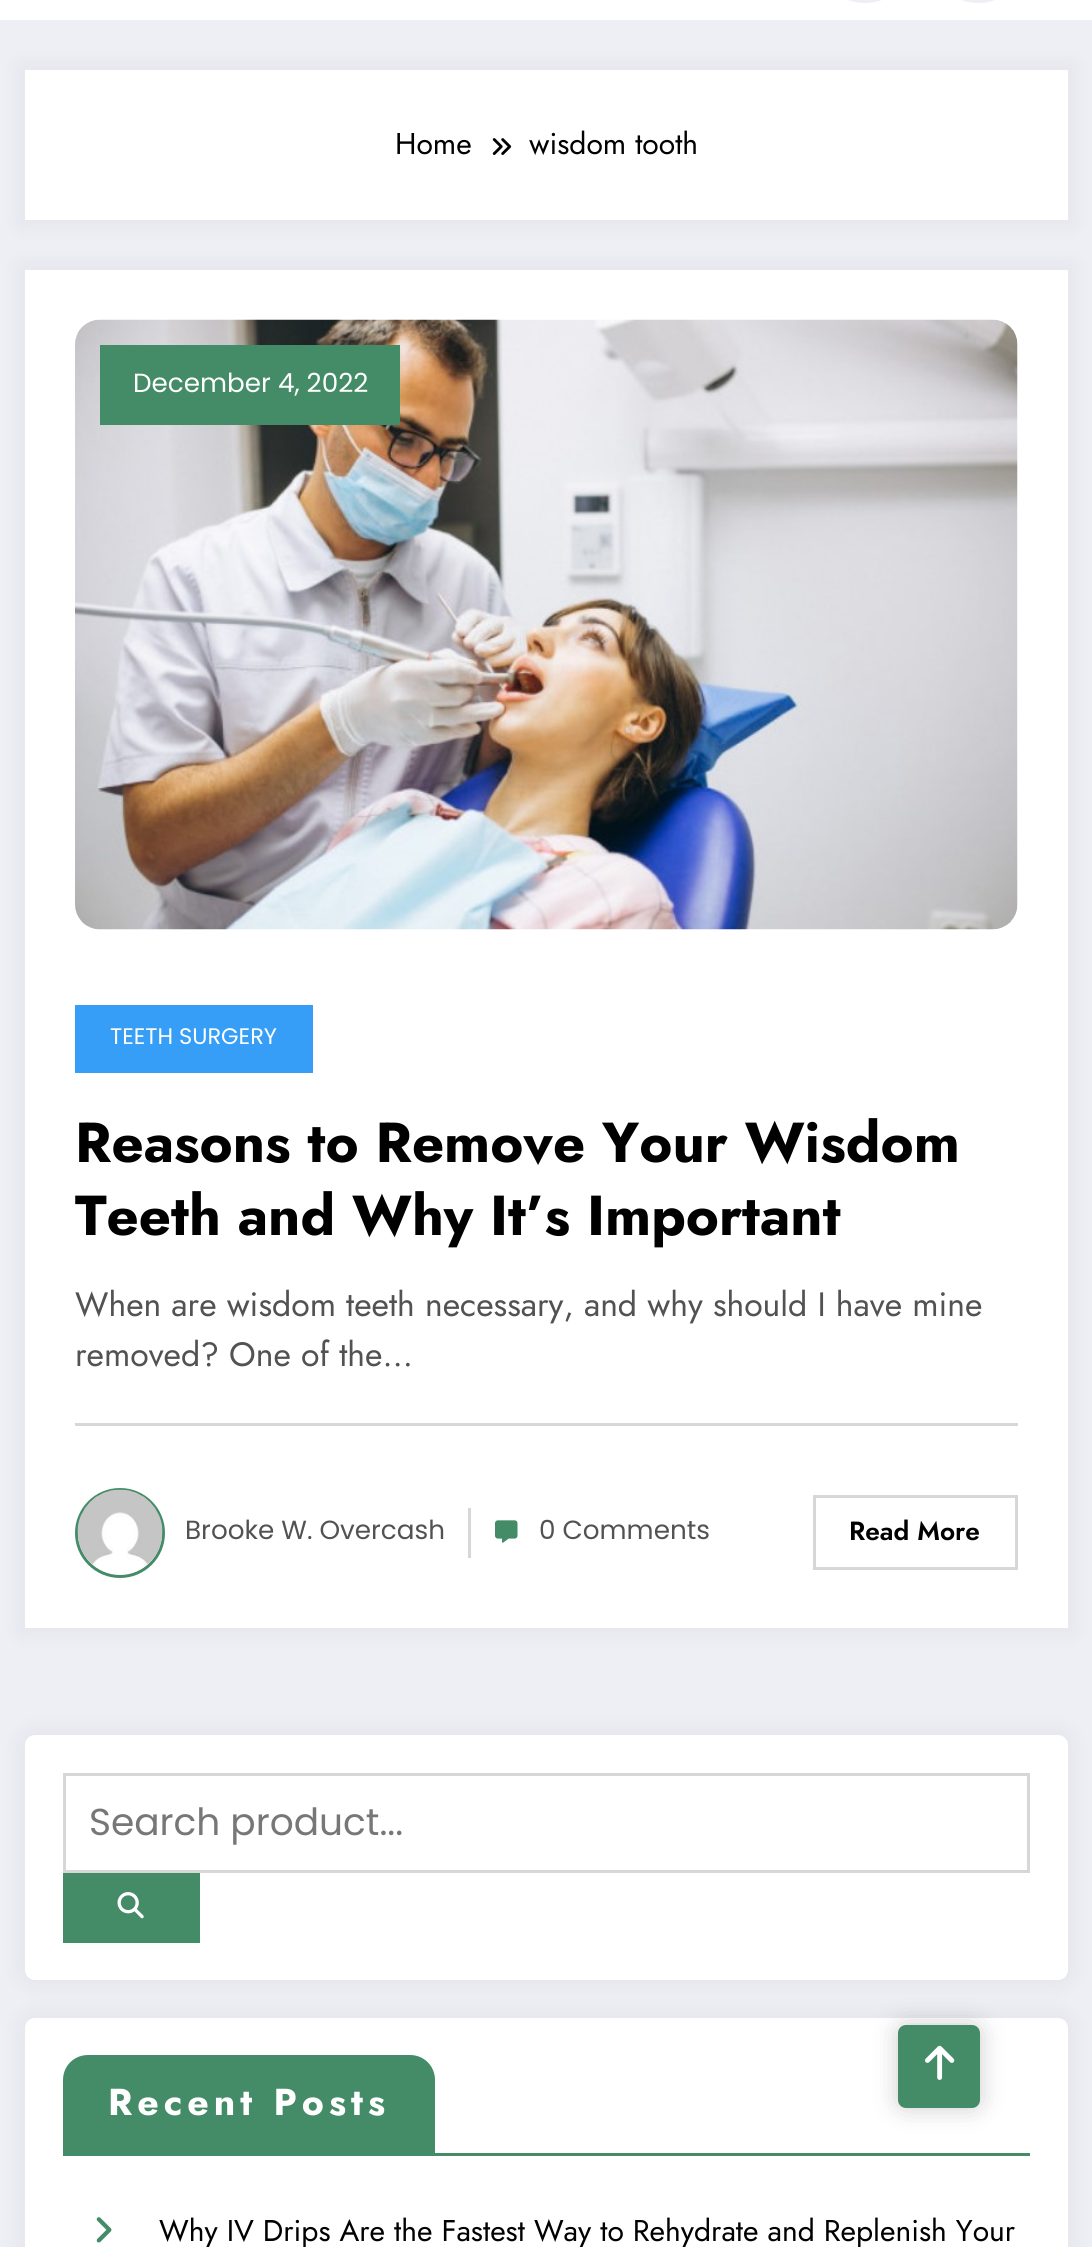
#include <cairo.h>
#include <math.h>
#include <stddef.h>

typedef struct { const char *family; double size; int italic, bold; unsigned color; } style_t;
static cairo_t *ctx;

static void ink(unsigned color) {
    cairo_set_source_rgb(ctx, (color >> 16) / 255.0, (color >> 8 & 255) / 255.0, (color & 255) / 255.0);
}

static void write(double x, double y, const char *s, const style_t *st) {
    cairo_select_font_face(ctx, st->family, st->italic ? CAIRO_FONT_SLANT_ITALIC : CAIRO_FONT_SLANT_NORMAL,
        st->bold ? CAIRO_FONT_WEIGHT_BOLD : CAIRO_FONT_WEIGHT_NORMAL);
    cairo_set_font_size(ctx, st->size);
    ink(st->color);
    cairo_move_to(ctx, x, y);
    cairo_show_text(ctx, s);
}

static void write_spaced(double x, double y, const char *s, double letter, double word) {
    cairo_move_to(ctx, x, y);
    while (*s) {
        char ch[5] = {0};
        int n = 0;
        do ch[n++] = *s++; while ((*s & 0xC0) == 0x80);
        cairo_show_text(ctx, ch);
        cairo_rel_move_to(ctx, letter + word * (*ch == ' '), 0);
    }
}

static void block(double x, double y, double w, double h, unsigned color) {
    ink(color);
    cairo_rectangle(ctx, x, y, w, h);
    cairo_fill(ctx);
}

static void round_path(double x, double y, double w, double h, double r) {
    cairo_new_sub_path(ctx);
    cairo_arc(ctx, x + w - r, y + h - r, r, 0, M_PI / 2);
    cairo_arc(ctx, x + r, y + h - r, r, M_PI / 2, M_PI);
    cairo_arc(ctx, x + r, y + r, r, M_PI, 1.5 * M_PI);
    cairo_arc(ctx, x + w - r, y + r, r, 1.5 * M_PI, 2 * M_PI);
    cairo_close_path(ctx);
}

static void blur_box(double x, double y, double w, double h, double r, double blur, double alpha) {
    cairo_push_group_with_content(ctx, CAIRO_CONTENT_ALPHA);
    cairo_set_operator(ctx, CAIRO_OPERATOR_SOURCE);
    for (int i = 15; i >= -15 && fmin(w, h) + blur * i / 3 > 0; i -= 2) {
        double e = blur * i / 6;
        cairo_set_source_rgba(ctx, 0, 0, 0, alpha * erfc((i - 1) / 8.5) / 2);
        round_path(x - e, y - e, w + 2 * e, h + 2 * e, fmax(0, fmin(r + e + blur * .6, fmin(w, h) / 2 + e)));
        cairo_fill(ctx);
    }
    cairo_pattern_t *soft = cairo_pop_group(ctx);
    cairo_mask(ctx, soft);
    cairo_pattern_destroy(soft);
}

static void paste(const char *path, double x, double y, double w, double h) {
    cairo_surface_t *image = cairo_image_surface_create_from_png(path);
    cairo_save(ctx);
    cairo_set_source_surface(ctx, image, x, y);
    cairo_rectangle(ctx, x, y, w, h);
    cairo_fill(ctx);
    cairo_restore(ctx);
    cairo_surface_destroy(image);
}

static const style_t s1 = {"Jost", 30, 0, 0, 0x000000};
static const style_t s2 = {"Poppins", 26.25, 0, 0, 0xffffff};
static const style_t s3 = {"Poppins", 22.5, 0, 0, 0xffffff};
static const style_t s4 = {"Jost", 56.25, 0, 1, 0x000000};
static const style_t s5 = {"Jost", 33.75, 0, 0, 0x525252};
static const style_t s6 = {"Poppins", 26.25, 0, 0, 0x525252};
static const style_t s7 = {"Jost SemiBold", 26.25, 0, 0, 0x000000};
static const style_t s8 = {"Poppins", 37.5, 0, 0, 0x777777};

int main(void) {
    cairo_surface_t *surface = cairo_image_surface_create(CAIRO_FORMAT_RGB24, 1092, 2247);
    ctx = cairo_create(surface);
    cairo_font_options_t *options = cairo_font_options_create();
    cairo_font_options_set_hint_metrics(options, CAIRO_HINT_METRICS_OFF);
    cairo_font_options_set_hint_style(options, CAIRO_HINT_STYLE_NONE);
    cairo_set_font_options(ctx, options);
    cairo_set_miter_limit(ctx, 4);
    ink(0xeeeef5);
    cairo_paint(ctx);
    block(0, 0, 1092, 20, 0xffffff);
    ink(0xeeeef5);
    round_path(815, -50, 100, 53, 50);
    cairo_fill(ctx);
    round_path(928, -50, 100, 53, 50);
    cairo_fill(ctx);
    ink(0x171723);
    blur_box(20, 65, 1053, 160, 0, 10, 0.05);
    block(25, 70, 1043, 150, 0xffffff);
    write(395, 154, "Home", &s1);
    paste("pic1.png", 492, 138, 20, 17);
    write(529, 154, "wisdom tooth", &s1);
    ink(0x171723);
    blur_box(20, 265, 1053, 1368, 0, 10, 0.05);
    block(25, 270, 1043, 1358, 0xffffff);
    paste("pic2.png", 75, 319, 943, 611);
    block(100, 345, 300, 80, 0x448c67);
    write(133, 392, "December 4, 2022", &s2);
    block(75, 1005, 238, 68, 0x369ef6);
    write(110, 1044, "TEETH SURGERY", &s3);
    write(75, 1162, "Reasons to Remove Your Wisdom", &s4);
    write(75, 1235, "Teeth and Why It’s Important", &s4);
    block(75, 1423, 943, 3, 0xd7d7d7);
    write(75, 1316, "When are wisdom teeth necessary, and why should I have mine", &s5);
    write(75, 1366, "removed? One of the…", &s5);
    cairo_new_path(ctx);
    cairo_arc(ctx, 120, 1533, 43.5, 0, 2 * M_PI);
    ink(0x448c67);
    cairo_set_line_width(ctx, 3);
    cairo_stroke(ctx);
    paste("pic3.png", 77, 1489, 86, 86);
    write(185, 1539, "Brooke W. Overcash", &s6);
    block(468, 1508, 3, 50, 0xd7d7d7);
    paste("pic4.png", 495, 1520, 23, 23);
    write(539, 1539, "0 Comments", &s6);
    cairo_rectangle(ctx, 814.5, 1496.5, 202, 72);
    ink(0xd7d7d7);
    cairo_stroke(ctx);
    write(849, 1540, "Read More", &s7);
    ink(0x171723);
    blur_box(20, 1730, 1053, 255, 15, 10, 0.05);
    ink(0xffffff);
    round_path(25, 1735, 1043, 245, 10);
    cairo_fill(ctx);
    cairo_rectangle(ctx, 64.5, 1774.5, 964, 97);
    ink(0xd7d7d7);
    cairo_stroke(ctx);
    write(89, 1835, "Search product...", &s8);
    block(63, 1873, 137, 70, 0x448c67);
    paste("pic5.png", 117, 1892, 27, 27);
    ink(0x171723);
    blur_box(20, 2013, 1053, 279, 15, 10, 0.05);
    ink(0xffffff);
    round_path(25, 2018, 1043, 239, 10);
    cairo_fill(ctx);
    block(63, 2153, 967, 3, 0x448c67);
    cairo_new_path(ctx);
    cairo_move_to(ctx, 88, 2055);
    cairo_line_to(ctx, 410, 2055);
    cairo_curve_to(ctx, 424, 2055, 435, 2066, 435, 2080);
    cairo_line_to(ctx, 435, 2153);
    cairo_line_to(ctx, 63, 2153);
    cairo_line_to(ctx, 63, 2080);
    cairo_curve_to(ctx, 63, 2066, 74, 2055, 88, 2055);
    cairo_close_path(ctx);
    cairo_fill(ctx);
    cairo_select_font_face(ctx, "Jost", CAIRO_FONT_SLANT_NORMAL, CAIRO_FONT_WEIGHT_BOLD);
    ink(0xffffff);
    write_spaced(108, 2115, "Recent Posts", 5, 0);
    paste("pic6.png", 96, 2217, 16, 26);
    write(159, 2241, "Why IV Drips Are the Fastest Way to Rehydrate and Replenish Your", &s1);
    ink(0x000000);
    blur_box(898, 2025, 82, 83, 8, 12.5, 0.2);
    ink(0x448c67);
    round_path(898, 2025, 82, 83, 8);
    cairo_fill(ctx);
    paste("pic7.png", 925, 2045, 30, 35);
    cairo_surface_write_to_png(surface, "screenshot.png");
    cairo_font_options_destroy(options);
    cairo_destroy(ctx);
    cairo_surface_destroy(surface);
    return 0;
}
